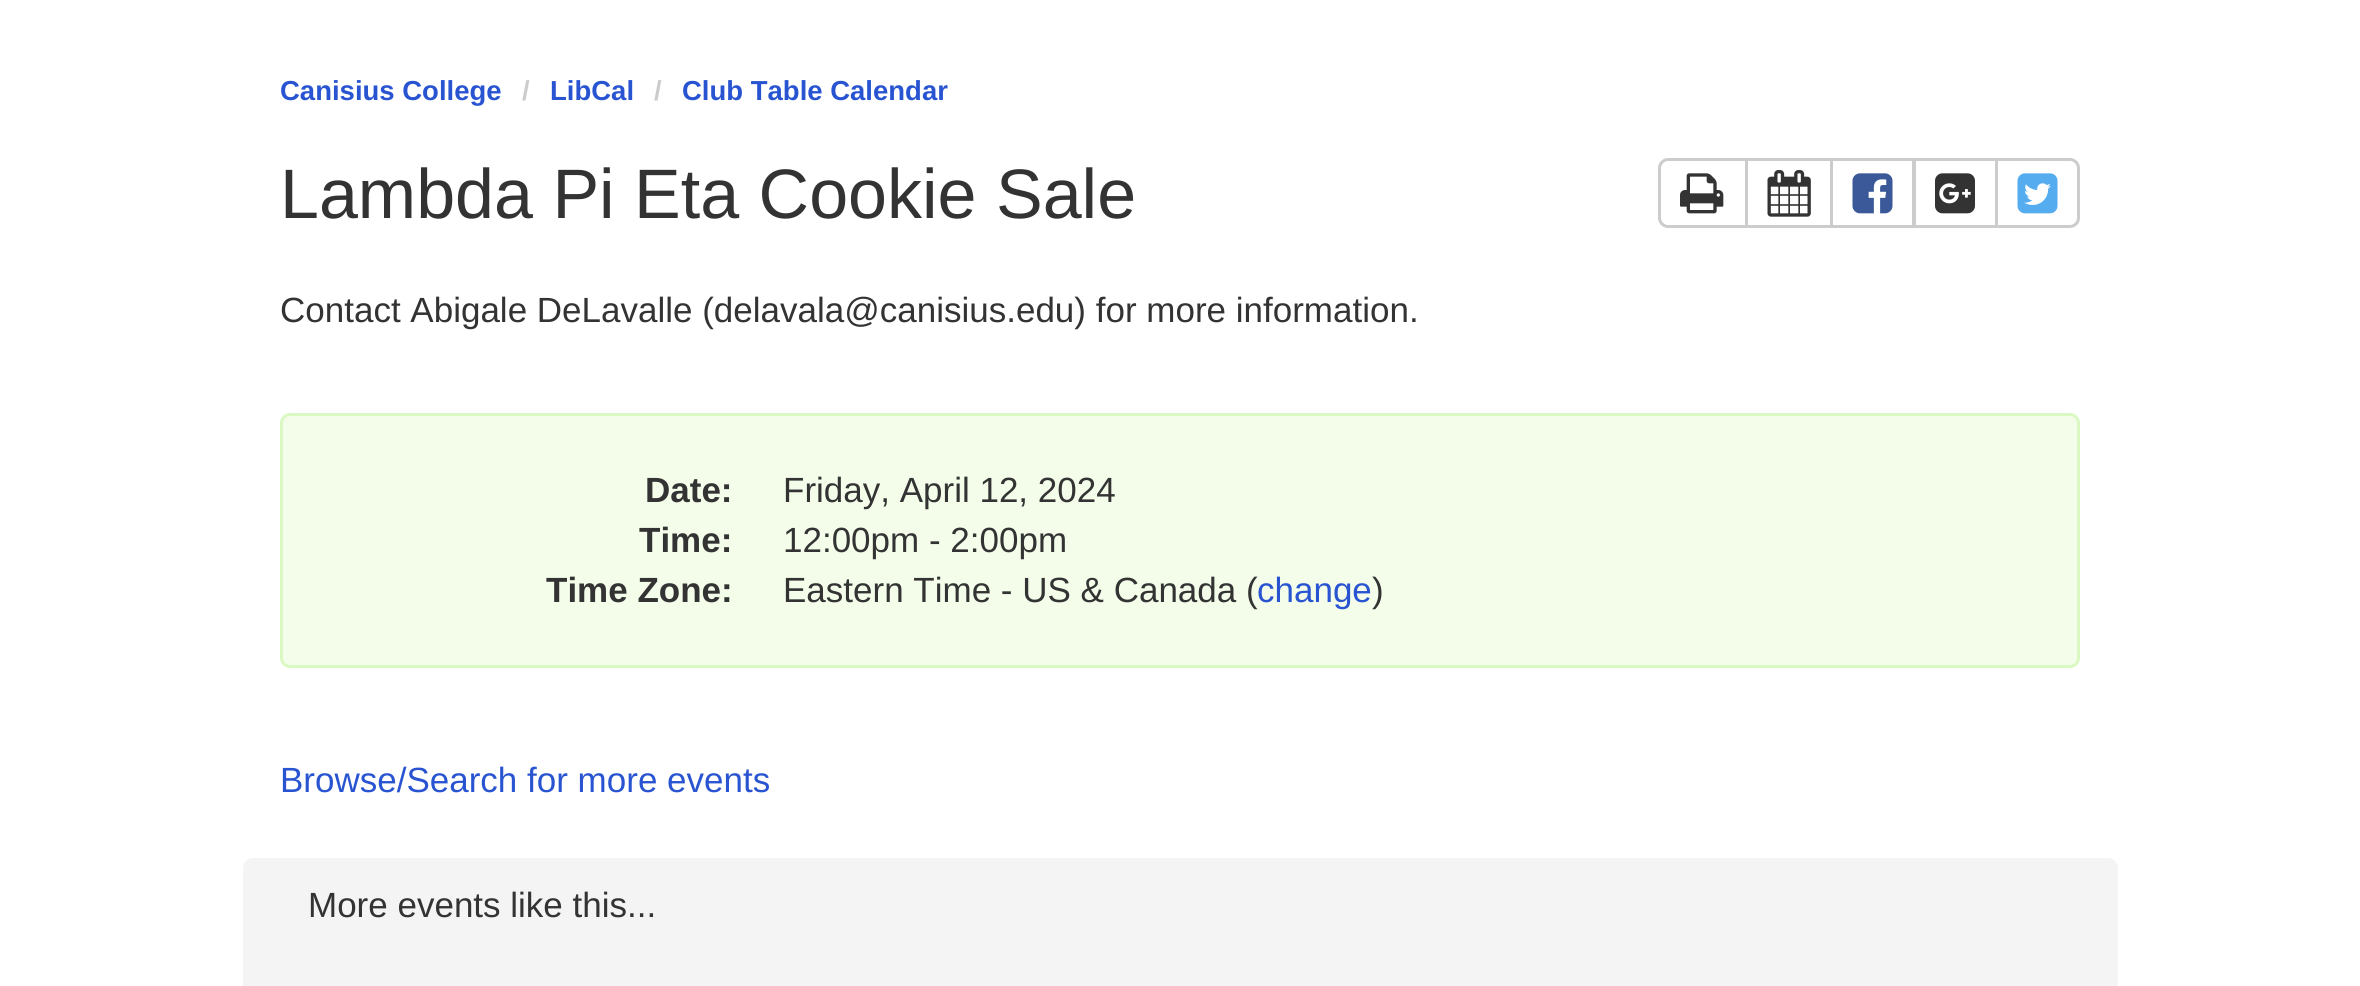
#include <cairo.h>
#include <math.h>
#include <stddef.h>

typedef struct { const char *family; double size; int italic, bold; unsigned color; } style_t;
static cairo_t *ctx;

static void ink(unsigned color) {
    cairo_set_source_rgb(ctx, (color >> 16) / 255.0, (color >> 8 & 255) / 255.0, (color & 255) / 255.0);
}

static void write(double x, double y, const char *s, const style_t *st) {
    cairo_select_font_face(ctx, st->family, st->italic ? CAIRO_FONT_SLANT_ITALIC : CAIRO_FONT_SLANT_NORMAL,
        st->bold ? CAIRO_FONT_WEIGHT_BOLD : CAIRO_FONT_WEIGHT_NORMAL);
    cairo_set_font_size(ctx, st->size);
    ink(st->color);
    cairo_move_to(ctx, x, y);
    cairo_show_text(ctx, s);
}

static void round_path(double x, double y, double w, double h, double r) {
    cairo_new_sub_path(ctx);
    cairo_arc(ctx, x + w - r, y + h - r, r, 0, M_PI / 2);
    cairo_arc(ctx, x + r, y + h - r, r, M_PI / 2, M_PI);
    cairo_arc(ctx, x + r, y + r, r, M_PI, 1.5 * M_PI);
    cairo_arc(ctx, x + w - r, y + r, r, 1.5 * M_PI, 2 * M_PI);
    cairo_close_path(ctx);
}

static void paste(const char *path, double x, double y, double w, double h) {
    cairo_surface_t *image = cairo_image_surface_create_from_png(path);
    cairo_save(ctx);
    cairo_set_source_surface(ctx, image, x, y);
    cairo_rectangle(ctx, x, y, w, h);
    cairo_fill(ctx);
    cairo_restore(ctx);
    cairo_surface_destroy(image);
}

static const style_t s1 = {"Liberation Sans", 27.5, 0, 1, 0x2954d1};
static const style_t s2 = {"Liberation Sans", 27.5, 0, 1, 0xcccccc};
static const style_t s3 = {"Liberation Sans", 70, 0, 0, 0x333333};
static const style_t s4 = {"Liberation Sans", 35, 0, 0, 0x333333};
static const style_t s5 = {"Liberation Sans", 35, 0, 1, 0x333333};
static const style_t s6 = {"Liberation Sans", 35, 0, 0, 0x2954d1};

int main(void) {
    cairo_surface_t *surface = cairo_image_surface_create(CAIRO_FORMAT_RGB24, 2360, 986);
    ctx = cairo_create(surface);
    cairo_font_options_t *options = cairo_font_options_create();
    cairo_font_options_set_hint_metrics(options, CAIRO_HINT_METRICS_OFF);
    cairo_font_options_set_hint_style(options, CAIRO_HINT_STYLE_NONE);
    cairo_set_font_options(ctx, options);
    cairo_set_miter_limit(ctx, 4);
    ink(0xffffff);
    cairo_paint(ctx);
    write(280, 100, "Canisius College", &s1);
    write(522, 100, "/", &s2);
    write(550, 100, "LibCal", &s1);
    write(654, 100, "/", &s2);
    write(682, 100, "Club Table Calendar", &s1);
    write(280, 218, "Lambda Pi Eta Cookie Sale", &s3);
    cairo_new_path(ctx);
    cairo_move_to(ctx, 1668, 159.5);
    cairo_line_to(ctx, 1746.5, 159.5);
    cairo_line_to(ctx, 1746.5, 226.5);
    cairo_line_to(ctx, 1668, 226.5);
    cairo_curve_to(ctx, 1663.5, 226.5, 1659.5, 222.5, 1659.5, 218);
    cairo_line_to(ctx, 1659.5, 168);
    cairo_curve_to(ctx, 1659.5, 163.5, 1663.5, 159.5, 1668, 159.5);
    cairo_close_path(ctx);
    ink(0xcccccc);
    cairo_set_line_width(ctx, 3);
    cairo_stroke(ctx);
    paste("pic1.png", 1680, 173, 44, 41);
    cairo_rectangle(ctx, 1746.5, 159.5, 85, 67);
    cairo_stroke(ctx);
    paste("pic2.png", 1767, 170, 44, 47);
    cairo_rectangle(ctx, 1831.5, 159.5, 82, 67);
    cairo_stroke(ctx);
    paste("pic3.png", 1852, 173, 41, 41);
    cairo_rectangle(ctx, 1914.5, 159.5, 82, 67);
    cairo_stroke(ctx);
    paste("pic4.png", 1935, 173, 40, 41);
    ink(0xffffff);
    cairo_new_path(ctx);
    cairo_move_to(ctx, 1996.5, 159.5);
    cairo_line_to(ctx, 2070, 159.5);
    cairo_curve_to(ctx, 2074.5, 159.5, 2078.5, 163.5, 2078.5, 168);
    cairo_line_to(ctx, 2078.5, 218);
    cairo_curve_to(ctx, 2078.5, 222.5, 2074.5, 226.5, 2070, 226.5);
    cairo_line_to(ctx, 1996.5, 226.5);
    cairo_close_path(ctx);
    cairo_fill_preserve(ctx);
    ink(0xcccccc);
    cairo_stroke(ctx);
    paste("pic5.png", 2017, 173, 41, 41);
    write(280, 322, "Contact Abigale DeLavalle (delavala@canisius.edu) for more information.", &s4);
    ink(0xf3fdea);
    round_path(281.5, 414.5, 1797, 252, 8.5);
    cairo_fill_preserve(ctx);
    ink(0xdaf9c2);
    cairo_stroke(ctx);
    write(645, 502, "Date:", &s5);
    write(783, 502, "Friday, April 12, 2024", &s4);
    write(639, 552, "Time:", &s5);
    write(783, 552, "12:00pm - 2:00pm", &s4);
    write(546, 602, "Time Zone:", &s5);
    write(783, 602, "Eastern Time - US & Canada (", &s4);
    write(1257, 602, "change", &s6);
    write(1372, 602, ")", &s4);
    write(280, 792, "Browse/Search for more events", &s6);
    ink(0xf4f4f4);
    round_path(243, 858, 1875, 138, 10);
    cairo_fill(ctx);
    write(308, 917, "More events like this...", &s4);
    cairo_surface_write_to_png(surface, "screenshot.png");
    cairo_font_options_destroy(options);
    cairo_destroy(ctx);
    cairo_surface_destroy(surface);
    return 0;
}
